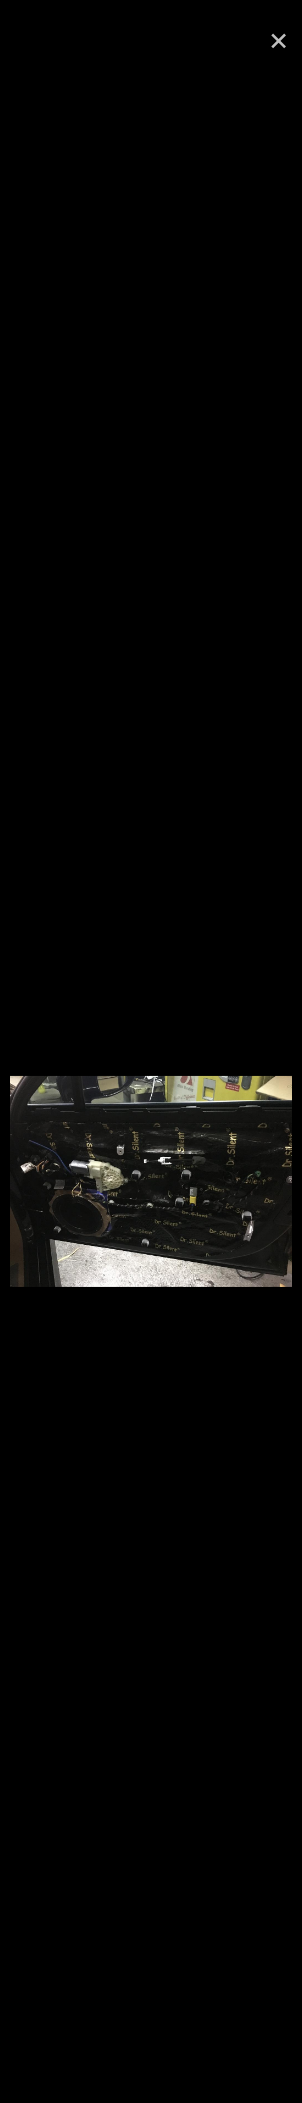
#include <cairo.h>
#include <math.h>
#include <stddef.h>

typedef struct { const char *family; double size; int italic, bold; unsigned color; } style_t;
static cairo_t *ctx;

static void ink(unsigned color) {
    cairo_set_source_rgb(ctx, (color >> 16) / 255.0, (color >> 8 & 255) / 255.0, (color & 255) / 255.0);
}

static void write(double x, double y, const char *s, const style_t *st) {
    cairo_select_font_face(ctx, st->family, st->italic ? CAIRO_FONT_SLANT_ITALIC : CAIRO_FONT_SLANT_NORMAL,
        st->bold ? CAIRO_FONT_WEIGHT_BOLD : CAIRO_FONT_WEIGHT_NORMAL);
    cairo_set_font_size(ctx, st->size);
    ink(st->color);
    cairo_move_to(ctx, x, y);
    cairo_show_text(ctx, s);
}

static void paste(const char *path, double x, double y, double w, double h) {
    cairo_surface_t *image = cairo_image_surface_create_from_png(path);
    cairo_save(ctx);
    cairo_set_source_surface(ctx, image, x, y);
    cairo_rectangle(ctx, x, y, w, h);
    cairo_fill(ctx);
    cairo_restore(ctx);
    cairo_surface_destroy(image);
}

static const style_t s1 = {"Inter", 32, 0, 0, 0xbfbfbf};

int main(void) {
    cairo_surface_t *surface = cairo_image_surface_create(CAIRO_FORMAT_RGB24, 302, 2103);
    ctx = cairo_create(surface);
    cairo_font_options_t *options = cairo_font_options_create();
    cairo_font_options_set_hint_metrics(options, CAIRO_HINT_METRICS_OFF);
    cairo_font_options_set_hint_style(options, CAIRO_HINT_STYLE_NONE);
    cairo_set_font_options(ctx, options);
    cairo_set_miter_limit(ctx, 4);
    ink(0x000000);
    cairo_paint(ctx);
    write(268, 50, "×", &s1);
    paste("pic1.png", 10, 1075, 282, 212);
    cairo_surface_write_to_png(surface, "screenshot.png");
    cairo_font_options_destroy(options);
    cairo_destroy(ctx);
    cairo_surface_destroy(surface);
    return 0;
}
